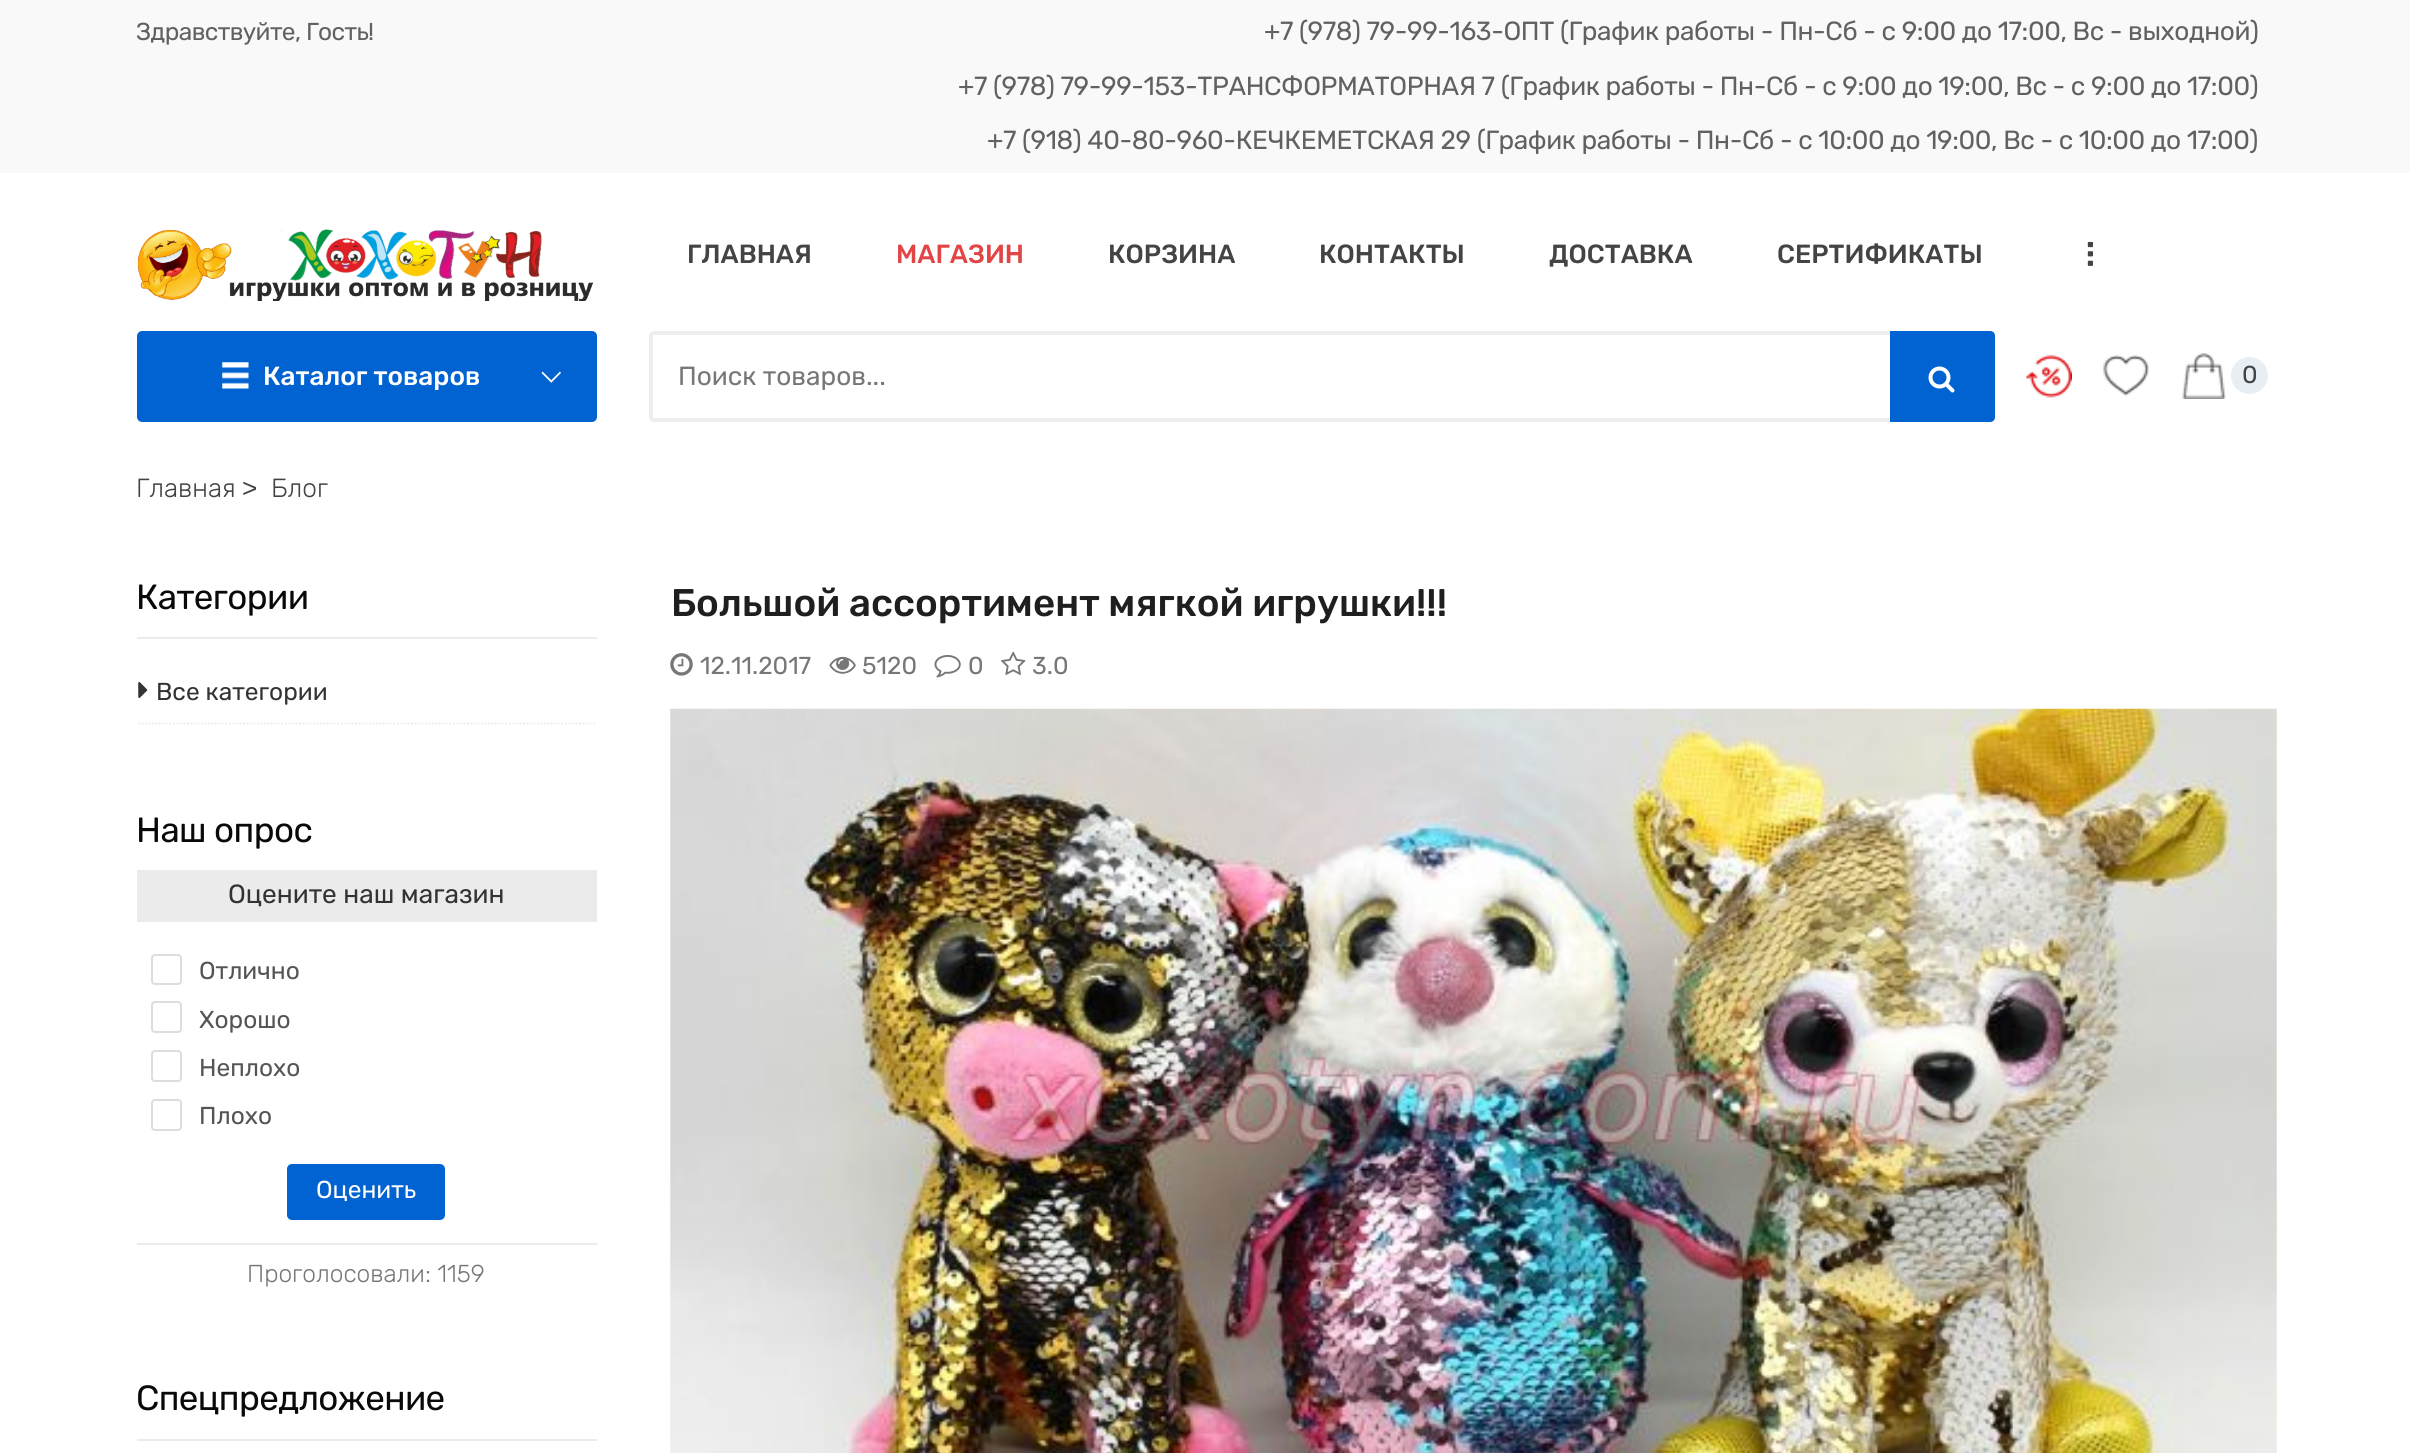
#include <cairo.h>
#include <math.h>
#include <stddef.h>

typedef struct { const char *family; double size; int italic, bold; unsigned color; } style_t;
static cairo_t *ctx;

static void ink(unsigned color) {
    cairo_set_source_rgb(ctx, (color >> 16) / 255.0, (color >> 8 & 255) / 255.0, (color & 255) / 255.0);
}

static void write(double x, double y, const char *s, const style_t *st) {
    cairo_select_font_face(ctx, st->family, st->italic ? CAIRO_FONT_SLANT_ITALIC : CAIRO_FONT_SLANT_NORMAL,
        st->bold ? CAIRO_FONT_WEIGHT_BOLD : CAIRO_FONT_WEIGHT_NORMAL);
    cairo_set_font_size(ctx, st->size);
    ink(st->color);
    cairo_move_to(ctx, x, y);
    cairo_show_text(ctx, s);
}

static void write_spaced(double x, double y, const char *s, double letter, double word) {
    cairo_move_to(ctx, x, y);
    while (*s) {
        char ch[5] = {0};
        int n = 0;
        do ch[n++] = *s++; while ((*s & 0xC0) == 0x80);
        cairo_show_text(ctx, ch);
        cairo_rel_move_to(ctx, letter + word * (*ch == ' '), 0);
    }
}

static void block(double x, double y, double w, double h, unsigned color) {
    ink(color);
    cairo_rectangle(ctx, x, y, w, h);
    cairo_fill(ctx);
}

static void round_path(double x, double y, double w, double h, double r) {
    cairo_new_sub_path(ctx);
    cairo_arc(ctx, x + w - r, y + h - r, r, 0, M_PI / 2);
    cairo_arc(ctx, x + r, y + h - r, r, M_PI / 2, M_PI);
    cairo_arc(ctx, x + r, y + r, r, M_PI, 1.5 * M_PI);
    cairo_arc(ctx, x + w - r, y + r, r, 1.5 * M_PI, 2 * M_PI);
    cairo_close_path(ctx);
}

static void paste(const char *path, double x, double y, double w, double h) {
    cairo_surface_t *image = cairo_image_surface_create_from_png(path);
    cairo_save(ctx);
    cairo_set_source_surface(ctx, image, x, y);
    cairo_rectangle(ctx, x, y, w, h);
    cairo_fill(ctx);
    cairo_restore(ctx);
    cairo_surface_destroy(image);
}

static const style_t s1 = {"Rubik Medium", 26.25, 0, 0, 0xffffff};
static const style_t s2 = {"Rubik Medium", 26.25, 0, 0, 0x444444};
static const style_t s3 = {"Rubik Medium", 26.25, 0, 0, 0xe14546};
static const style_t s4 = {"Rubik Medium", 35, 0, 0, 0x444444};
static const style_t s5 = {"Rubik", 26.25, 0, 0, 0x777777};
static const style_t s6 = {"Rubik", 24.5, 0, 0, 0x444444};
static const style_t s7 = {"Rubik Light", 26.25, 0, 0, 0x444444};
static const style_t s8 = {"Liberation Sans", 26.25, 0, 0, 0x444444};
static const style_t s9 = {"Rubik", 24.5, 0, 0, 0x333333};
static const style_t s10 = {"Rubik", 26.25, 0, 0, 0x333333};
static const style_t s11 = {"Rubik", 24.5, 0, 0, 0x555555};
static const style_t s12 = {"Rubik", 24.5, 0, 0, 0xffffff};
static const style_t s13 = {"Rubik Light", 24.5, 0, 0, 0x777777};
static const style_t s14 = {"Rubik Medium", 38.5, 0, 0, 0x1f1f1f};
static const style_t s15 = {"Rubik", 24.5, 0, 0, 0x777777};

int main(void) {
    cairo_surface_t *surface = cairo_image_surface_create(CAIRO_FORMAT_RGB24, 2410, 1453);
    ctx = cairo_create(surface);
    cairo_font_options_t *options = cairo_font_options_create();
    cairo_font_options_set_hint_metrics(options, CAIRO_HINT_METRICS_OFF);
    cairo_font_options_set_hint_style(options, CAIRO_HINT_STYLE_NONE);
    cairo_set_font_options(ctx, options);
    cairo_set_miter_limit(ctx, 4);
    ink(0xffffff);
    cairo_paint(ctx);
    block(0, 0, 2410, 173, 0xf9f9f9);
    cairo_select_font_face(ctx, "Rubik", CAIRO_FONT_SLANT_NORMAL, CAIRO_FONT_WEIGHT_NORMAL);
    cairo_set_font_size(ctx, 24.5);
    ink(0x626060);
    write_spaced(136, 40, "Здравствуйте, Гость!", -0.6, 0);
    cairo_set_font_size(ctx, 26.25);
    write_spaced(1264, 40, "+7 (978) 79-99-163-ОПТ (График работы - Пн-Сб - с 9:00 до 17:00, Вс - выходной)", -0.41, 0);
    write_spaced(958, 95, "+7 (978) 79-99-153-ТРАНСФОРМАТОРНАЯ 7 (График работы - Пн-Сб - с 9:00 до 19:00, Вс - с 9:00 до 17:00)", -0.41, 0);
    write_spaced(987, 149, "+7 (918) 40-80-960-КЕЧКЕМЕТСКАЯ 29 (График работы - Пн-Сб - с 10:00 до 19:00, Вс - с 10:00 до 17:00)", -0.41, 0);
    paste("pic1.png", 137, 229, 457, 72);
    ink(0x0063d1);
    round_path(139, 333, 456, 87, 3);
    cairo_fill_preserve(ctx);
    cairo_set_line_width(ctx, 4);
    cairo_stroke(ctx);
    paste("pic2.png", 222, 362, 27, 27);
    write(263, 385, "Каталог товаров", &s1);
    cairo_new_path(ctx);
    cairo_move_to(ctx, 542.5, 371.5);
    cairo_line_to(ctx, 552.5, 381.5);
    cairo_line_to(ctx, 551, 382.5);
    cairo_line_to(ctx, 541.5, 373);
    cairo_close_path(ctx);
    cairo_fill(ctx);
    cairo_new_path(ctx);
    cairo_move_to(ctx, 550, 381.5);
    cairo_line_to(ctx, 560, 371.5);
    cairo_line_to(ctx, 561, 373);
    cairo_line_to(ctx, 551.5, 382.5);
    cairo_close_path(ctx);
    cairo_fill(ctx);
    write(687, 263, "ГЛАВНАЯ", &s2);
    write(896, 263, "МАГАЗИН", &s3);
    write(1108, 263, "КОРЗИНА", &s2);
    write(1319, 263, "КОНТАКТЫ", &s2);
    write(1549, 263, "ДОСТАВКА", &s2);
    write(1777, 263, "СЕРТИФИКАТЫ", &s2);
    cairo_save(ctx);
    cairo_translate(ctx, 2093, 268);
    cairo_rotate(ctx, -90 * M_PI / 180);
    write(0, 0, "...", &s4);
    cairo_restore(ctx);
    cairo_new_path(ctx);
    cairo_move_to(ctx, 654, 333);
    cairo_line_to(ctx, 1906, 333);
    cairo_line_to(ctx, 1906, 420);
    cairo_line_to(ctx, 654, 420);
    cairo_curve_to(ctx, 652.5, 420, 651, 418.5, 651, 417);
    cairo_line_to(ctx, 651, 336);
    cairo_curve_to(ctx, 651, 334.5, 652.5, 333, 654, 333);
    cairo_close_path(ctx);
    ink(0xeeeeee);
    cairo_stroke(ctx);
    write(678, 385, "Поиск товаров...", &s5);
    ink(0x0063d1);
    cairo_new_path(ctx);
    cairo_move_to(ctx, 1890, 331);
    cairo_line_to(ctx, 1990, 331);
    cairo_curve_to(ctx, 1993, 331, 1995, 333, 1995, 336);
    cairo_line_to(ctx, 1995, 417);
    cairo_curve_to(ctx, 1995, 420, 1993, 422, 1990, 422);
    cairo_line_to(ctx, 1890, 422);
    cairo_close_path(ctx);
    cairo_fill(ctx);
    paste("pic3.png", 1928, 366, 27, 27);
    paste("pic4.png", 2026, 354, 46, 44);
    paste("pic5.png", 2103, 355, 46, 41);
    paste("pic6.png", 2182, 353, 44, 46);
    ink(0xe8eff4);
    cairo_arc(ctx, 2249.5, 375.5, 18.5, 0, 2 * M_PI);
    cairo_fill(ctx);
    write(2242, 383, "0", &s6);
    write(136, 497, "Главная", &s7);
    write(242, 497, "˃", &s8);
    write(271, 497, "Блог", &s7);
    block(137, 637, 460, 2, 0xebebeb);
    cairo_select_font_face(ctx, "Rubik", CAIRO_FONT_SLANT_NORMAL, CAIRO_FONT_WEIGHT_NORMAL);
    cairo_set_font_size(ctx, 35);
    ink(0x090909);
    write_spaced(136, 609, "Категории", -0.6, 0);
    cairo_new_path(ctx);
    cairo_move_to(ctx, 138, 723.5);
    cairo_line_to(ctx, 595, 723.5);
    ink(0xebebeb);
    cairo_set_line_width(ctx, 1.8);
    cairo_set_dash(ctx, (double[]){1.75, 1.75}, 2, 0);
    cairo_stroke(ctx);
    paste("pic7.png", 138, 682, 10, 16);
    write(156, 700, "Все категории", &s9);
    cairo_set_font_size(ctx, 35);
    ink(0x090909);
    write_spaced(136, 842, "Наш опрос", -0.6, 0);
    block(137, 870, 460, 52, 0xebebeb);
    write(228, 903, "Оцените наш магазин", &s10);
    round_path(152, 955, 29, 29, 3);
    ink(0xdddddd);
    cairo_set_line_width(ctx, 2);
    cairo_set_dash(ctx, NULL, 0, 0);
    cairo_stroke(ctx);
    write(199, 979, "Отлично", &s11);
    round_path(152, 1002, 29, 30, 3);
    ink(0xdddddd);
    cairo_stroke(ctx);
    write(199, 1028, "Хорошо", &s11);
    round_path(152, 1051, 29, 30, 3);
    ink(0xdddddd);
    cairo_stroke(ctx);
    write(199, 1076, "Неплохо", &s11);
    round_path(152, 1100, 29, 30, 3);
    ink(0xdddddd);
    cairo_stroke(ctx);
    write(199, 1124, "Плохо", &s11);
    ink(0x0063d1);
    round_path(287, 1164, 158, 56, 5);
    cairo_fill(ctx);
    write(316, 1198, "Оценить", &s12);
    block(137, 1243, 460, 2, 0xebebeb);
    write(247, 1282, "Проголосовали: 1159", &s13);
    block(137, 1439, 460, 2, 0xebebeb);
    cairo_select_font_face(ctx, "Rubik", CAIRO_FONT_SLANT_NORMAL, CAIRO_FONT_WEIGHT_NORMAL);
    cairo_set_font_size(ctx, 35);
    ink(0x090909);
    write_spaced(136, 1410, "Спецпредложение", -0.6, 0);
    write(671, 616, "Большой ассортимент мягкой игрушки!!!", &s14);
    paste("pic8.png", 670, 653, 23, 23);
    write(700, 674, "12.11.2017", &s15);
    paste("pic9.png", 829, 656, 27, 18);
    write(862, 674, "5120", &s15);
    paste("pic10.png", 934, 655, 27, 23);
    write(968, 674, "0", &s15);
    paste("pic11.png", 1001, 651, 25, 24);
    write(1032, 674, "3.0", &s15);
    paste("pic12.png", 670, 708, 1607, 745);
    cairo_surface_write_to_png(surface, "screenshot.png");
    cairo_font_options_destroy(options);
    cairo_destroy(ctx);
    cairo_surface_destroy(surface);
    return 0;
}
